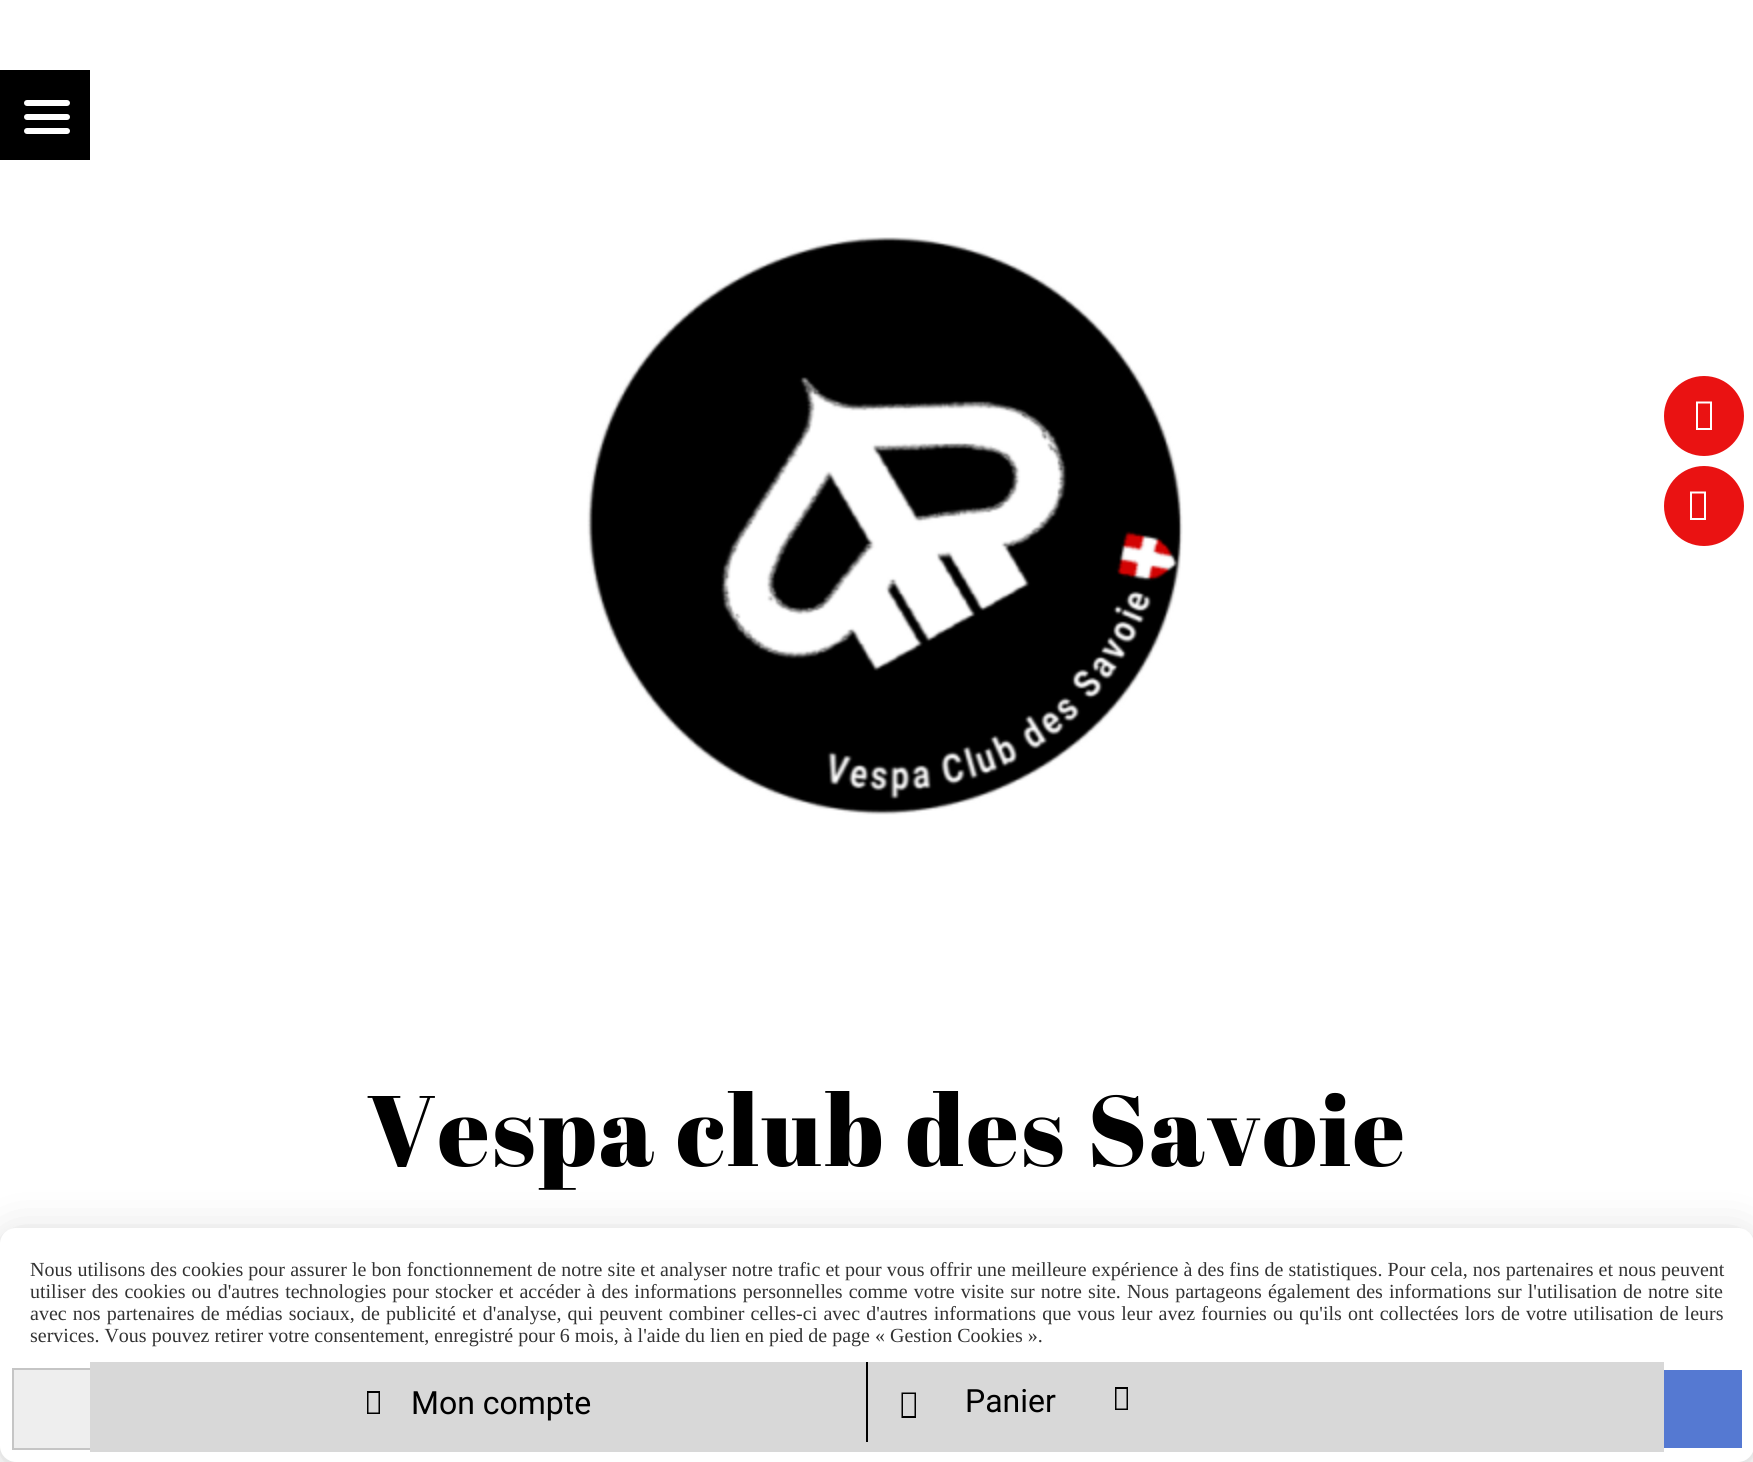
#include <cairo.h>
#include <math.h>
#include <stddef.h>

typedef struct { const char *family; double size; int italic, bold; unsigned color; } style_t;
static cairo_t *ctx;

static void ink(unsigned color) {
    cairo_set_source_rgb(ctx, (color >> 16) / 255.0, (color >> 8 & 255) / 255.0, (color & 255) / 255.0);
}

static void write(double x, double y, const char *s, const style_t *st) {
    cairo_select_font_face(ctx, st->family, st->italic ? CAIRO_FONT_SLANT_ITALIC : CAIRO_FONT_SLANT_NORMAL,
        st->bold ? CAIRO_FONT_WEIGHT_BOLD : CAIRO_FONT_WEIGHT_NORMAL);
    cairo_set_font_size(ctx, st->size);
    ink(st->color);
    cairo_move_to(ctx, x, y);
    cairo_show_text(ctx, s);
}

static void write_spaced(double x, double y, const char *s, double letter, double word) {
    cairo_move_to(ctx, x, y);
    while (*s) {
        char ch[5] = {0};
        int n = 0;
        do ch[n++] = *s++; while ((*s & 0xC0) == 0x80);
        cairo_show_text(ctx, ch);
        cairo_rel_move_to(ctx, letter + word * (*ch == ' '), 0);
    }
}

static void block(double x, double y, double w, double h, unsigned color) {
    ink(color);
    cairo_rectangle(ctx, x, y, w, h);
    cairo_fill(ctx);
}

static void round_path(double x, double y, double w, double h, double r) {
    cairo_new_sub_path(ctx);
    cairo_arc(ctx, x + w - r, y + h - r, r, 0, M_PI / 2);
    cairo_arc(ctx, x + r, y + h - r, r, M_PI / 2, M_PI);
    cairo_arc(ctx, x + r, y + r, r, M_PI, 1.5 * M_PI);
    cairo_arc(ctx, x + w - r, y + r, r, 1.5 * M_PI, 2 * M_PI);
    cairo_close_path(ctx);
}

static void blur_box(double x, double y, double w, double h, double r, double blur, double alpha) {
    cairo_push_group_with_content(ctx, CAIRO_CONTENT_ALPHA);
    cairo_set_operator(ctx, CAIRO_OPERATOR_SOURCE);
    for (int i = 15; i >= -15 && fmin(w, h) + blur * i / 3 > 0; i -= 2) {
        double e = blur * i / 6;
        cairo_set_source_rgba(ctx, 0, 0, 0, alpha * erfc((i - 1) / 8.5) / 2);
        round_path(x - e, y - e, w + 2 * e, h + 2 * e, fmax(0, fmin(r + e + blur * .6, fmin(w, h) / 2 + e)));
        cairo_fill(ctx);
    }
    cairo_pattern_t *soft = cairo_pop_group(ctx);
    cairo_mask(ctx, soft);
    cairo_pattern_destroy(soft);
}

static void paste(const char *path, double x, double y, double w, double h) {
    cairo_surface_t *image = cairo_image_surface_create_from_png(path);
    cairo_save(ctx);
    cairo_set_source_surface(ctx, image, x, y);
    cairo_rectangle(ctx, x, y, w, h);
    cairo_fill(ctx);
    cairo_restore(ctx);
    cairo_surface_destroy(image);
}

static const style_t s1 = {"Roboto", 32, 0, 0, 0x000000};
static const style_t s2 = {"Liberation Serif", 20, 0, 0, 0x333333};

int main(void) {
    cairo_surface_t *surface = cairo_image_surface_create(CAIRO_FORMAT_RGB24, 1753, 1462);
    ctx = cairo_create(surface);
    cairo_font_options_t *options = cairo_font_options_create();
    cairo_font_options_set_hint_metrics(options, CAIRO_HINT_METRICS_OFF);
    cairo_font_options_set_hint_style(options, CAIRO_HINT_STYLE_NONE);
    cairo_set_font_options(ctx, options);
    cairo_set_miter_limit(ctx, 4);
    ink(0xffffff);
    cairo_paint(ctx);
    ink(0xea1212);
    cairo_arc(ctx, 1704, 416, 40, 0, 2 * M_PI);
    cairo_fill(ctx);
    ink(0xffffff);
    cairo_new_path(ctx);
    cairo_move_to(ctx, 1696, 430);
    cairo_line_to(ctx, 1696, 401.5);
    cairo_line_to(ctx, 1712, 401.5);
    cairo_line_to(ctx, 1712, 430);
    cairo_close_path(ctx);
    cairo_move_to(ctx, 1698, 428);
    cairo_line_to(ctx, 1710, 428);
    cairo_line_to(ctx, 1710, 403.5);
    cairo_line_to(ctx, 1698, 403.5);
    cairo_close_path(ctx);
    cairo_fill(ctx);
    ink(0xea1212);
    cairo_arc(ctx, 1704, 506, 40, 0, 2 * M_PI);
    cairo_fill(ctx);
    ink(0xffffff);
    cairo_new_path(ctx);
    cairo_move_to(ctx, 1690, 520);
    cairo_line_to(ctx, 1690, 491.5);
    cairo_line_to(ctx, 1706, 491.5);
    cairo_line_to(ctx, 1706, 520);
    cairo_close_path(ctx);
    cairo_move_to(ctx, 1692, 518);
    cairo_line_to(ctx, 1704, 518);
    cairo_line_to(ctx, 1704, 493.5);
    cairo_line_to(ctx, 1692, 493.5);
    cairo_close_path(ctx);
    cairo_fill(ctx);
    block(0, 70, 90, 90, 0x000000);
    ink(0xffffff);
    round_path(24, 100, 46, 6, 3);
    cairo_fill(ctx);
    round_path(24, 114, 46, 6, 3);
    cairo_fill(ctx);
    round_path(24, 128, 46, 6, 3);
    cairo_fill(ctx);
    paste("pic1.png", 587, 237, 596, 578);
    cairo_select_font_face(ctx, "Abril Fatface", CAIRO_FONT_SLANT_NORMAL, CAIRO_FONT_WEIGHT_NORMAL);
    cairo_set_font_size(ctx, 100);
    ink(0x000000);
    write_spaced(367, 1166, "Vespa club des Savoie", 2.4, 0);
    ink(0x000000);
    blur_box(0, 1232, 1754, 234, 16, 6, 0.05);
    blur_box(0, 1236, 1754, 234, 16, 24, 0.15);
    ink(0xffffff);
    round_path(0, 1228, 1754, 234, 16);
    cairo_fill(ctx);
    block(14, 1370, 76, 78, 0xeeeeee);
    cairo_rectangle(ctx, 13, 1369, 576, 80);
    ink(0xc5c5c5);
    cairo_stroke(ctx);
    block(90, 1362, 1574, 90, 0xd8d8d8);
    block(866, 1362, 2, 80, 0x000000);
    cairo_new_path(ctx);
    cairo_move_to(ctx, 367, 1414);
    cairo_line_to(ctx, 367, 1391);
    cairo_line_to(ctx, 380, 1391);
    cairo_line_to(ctx, 380, 1414);
    cairo_close_path(ctx);
    cairo_move_to(ctx, 368.5, 1412.5);
    cairo_line_to(ctx, 378.5, 1412.5);
    cairo_line_to(ctx, 378.5, 1393);
    cairo_line_to(ctx, 368.5, 1393);
    cairo_close_path(ctx);
    cairo_fill(ctx);
    write(411, 1414, "Mon compte", &s1);
    cairo_new_path(ctx);
    cairo_move_to(ctx, 901.5, 1418);
    cairo_line_to(ctx, 901.5, 1392.5);
    cairo_line_to(ctx, 916, 1392.5);
    cairo_line_to(ctx, 916, 1418);
    cairo_close_path(ctx);
    cairo_move_to(ctx, 903, 1416);
    cairo_line_to(ctx, 914.5, 1416);
    cairo_line_to(ctx, 914.5, 1394);
    cairo_line_to(ctx, 903, 1394);
    cairo_close_path(ctx);
    cairo_fill(ctx);
    write(965, 1412, "Panier", &s1);
    cairo_new_path(ctx);
    cairo_move_to(ctx, 1115, 1410);
    cairo_line_to(ctx, 1115, 1387);
    cairo_line_to(ctx, 1128, 1387);
    cairo_line_to(ctx, 1128, 1410);
    cairo_close_path(ctx);
    cairo_move_to(ctx, 1116.5, 1408.5);
    cairo_line_to(ctx, 1126.5, 1408.5);
    cairo_line_to(ctx, 1126.5, 1389);
    cairo_line_to(ctx, 1116.5, 1389);
    cairo_close_path(ctx);
    cairo_fill(ctx);
    cairo_select_font_face(ctx, "Liberation Serif", CAIRO_FONT_SLANT_NORMAL, CAIRO_FONT_WEIGHT_NORMAL);
    cairo_set_font_size(ctx, 20);
    ink(0x333333);
    write_spaced(30, 1276, "Nous utilisons des cookies pour assurer le bon fonctionnement de notre site et analyser notre trafic et pour vous offrir une meilleure expérience à des fins de statistiques. Pour cela, nos partenaires et nous peuvent", 0, 0.15);
    write_spaced(30, 1298, "utiliser des cookies ou d'autres technologies pour stocker et accéder à des informations personnelles comme votre visite sur notre site. Nous partageons également des informations sur l'utilisation de notre site", 0, 1.1);
    write_spaced(30, 1320, "avec nos partenaires de médias sociaux, de publicité et d'analyse, qui peuvent combiner celles-ci avec d'autres informations que vous leur avez fournies ou qu'ils ont collectées lors de votre utilisation de leurs", 0, 1.2);
    write(30, 1342, "services. Vous pouvez retirer votre consentement, enregistré pour 6 mois, à l'aide du lien en pied de page « Gestion Cookies ».", &s2);
    block(1664, 1370, 78, 78, 0x5579d2);
    cairo_surface_write_to_png(surface, "screenshot.png");
    cairo_font_options_destroy(options);
    cairo_destroy(ctx);
    cairo_surface_destroy(surface);
    return 0;
}
